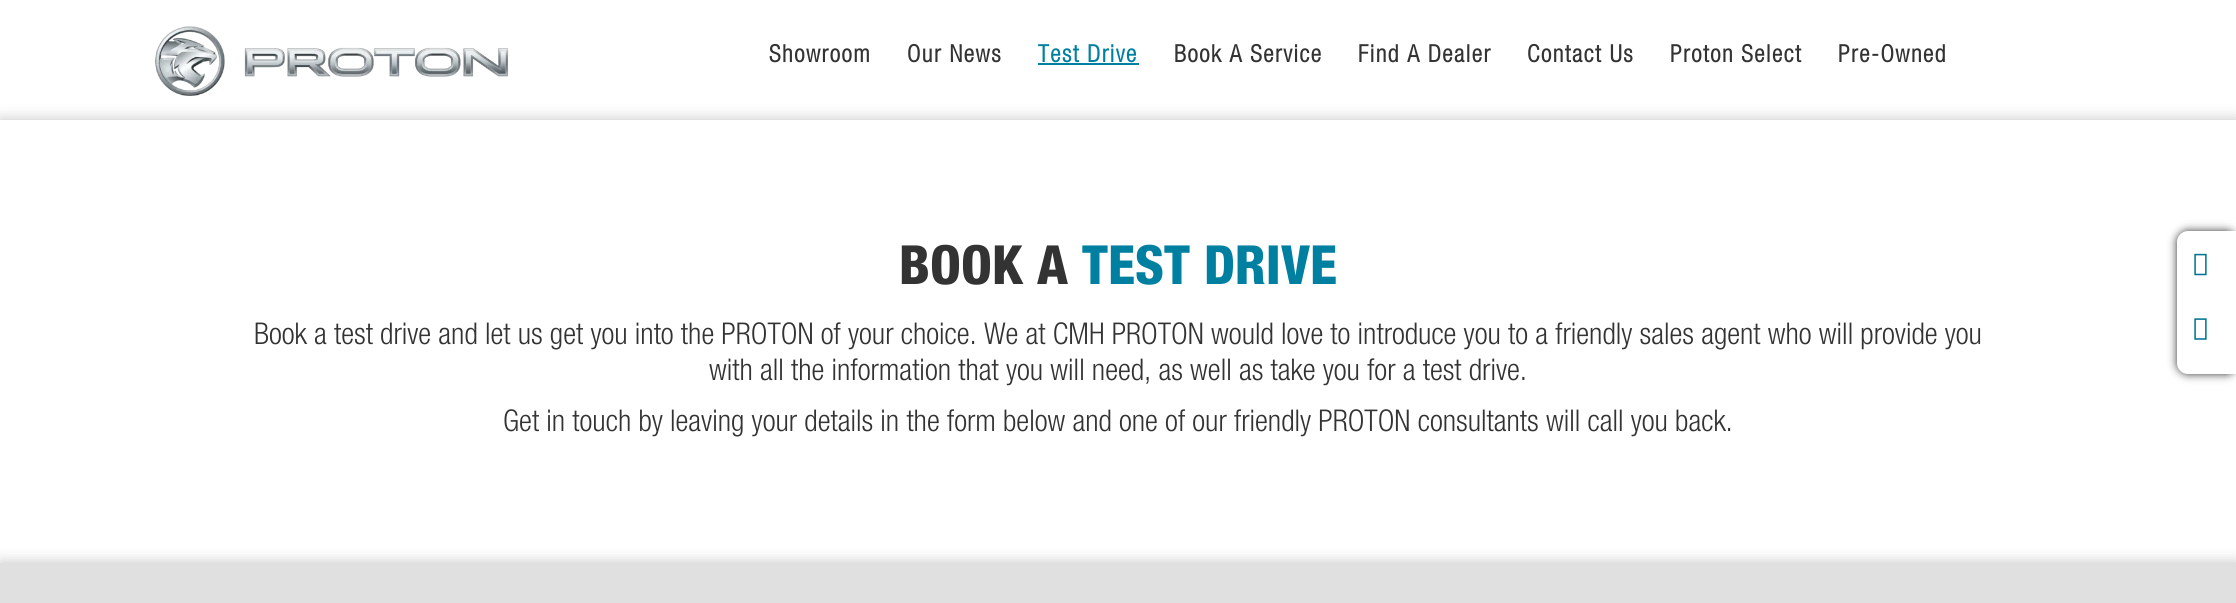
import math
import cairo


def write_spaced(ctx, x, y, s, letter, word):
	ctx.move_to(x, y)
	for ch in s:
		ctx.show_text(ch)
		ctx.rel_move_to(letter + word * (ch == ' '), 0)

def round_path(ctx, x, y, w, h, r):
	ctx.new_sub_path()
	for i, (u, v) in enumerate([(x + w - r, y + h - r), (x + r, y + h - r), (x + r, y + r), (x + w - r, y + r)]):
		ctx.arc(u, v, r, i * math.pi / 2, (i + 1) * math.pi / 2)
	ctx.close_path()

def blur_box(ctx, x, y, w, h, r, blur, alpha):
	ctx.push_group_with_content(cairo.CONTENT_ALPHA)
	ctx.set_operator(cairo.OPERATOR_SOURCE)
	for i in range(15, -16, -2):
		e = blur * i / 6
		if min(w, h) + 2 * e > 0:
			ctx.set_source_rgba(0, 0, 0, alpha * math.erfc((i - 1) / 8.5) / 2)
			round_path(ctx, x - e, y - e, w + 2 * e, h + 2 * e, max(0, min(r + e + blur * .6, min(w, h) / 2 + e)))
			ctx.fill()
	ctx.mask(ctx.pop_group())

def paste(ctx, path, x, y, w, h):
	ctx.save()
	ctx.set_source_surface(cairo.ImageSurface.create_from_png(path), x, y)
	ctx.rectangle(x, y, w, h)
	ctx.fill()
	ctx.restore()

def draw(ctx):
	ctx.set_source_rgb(1, 1, 1)
	ctx.paint()
	paste(ctx, 'media/1.png', 155, 26, 354, 70)
	ctx.select_font_face('Helvetica Neue', cairo.FONT_SLANT_NORMAL, cairo.FONT_WEIGHT_BOLD)
	ctx.set_font_size(24)
	ctx.set_source_rgb(0.2, 0.2, 0.2)
	write_spaced(ctx, 769, 62, 'Showroom', 1.5, 0)
	write_spaced(ctx, 907, 62, 'Our News', 1.5, 0)
	ctx.set_source_rgb(0, 0.502, 0.627)
	write_spaced(ctx, 1038, 62, 'Test Drive', 1.5, 0)
	ctx.rectangle(1038, 63, 101, 2)
	ctx.fill()
	ctx.set_source_rgb(0.2, 0.2, 0.2)
	for x, y, s in [
		(1174, 62, 'Book A Service'),
		(1358, 62, 'Find A Dealer'),
		(1527, 62, 'Contact Us'),
		(1670, 62, 'Proton Select'),
		(1838, 62, 'Pre-Owned'),
	]:
		write_spaced(ctx, x, y, s, 1.5, 0)
	ctx.set_source_rgb(0.765, 0.765, 0.765)
	blur_box(ctx, 0, 120, 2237, 443, 0, 7.5, 1)
	ctx.set_source_rgb(1, 1, 1)
	ctx.rectangle(0, 120, 2236, 443)
	ctx.fill()
	ctx.select_font_face('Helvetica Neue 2', cairo.FONT_SLANT_NORMAL, cairo.FONT_WEIGHT_BOLD)
	ctx.set_font_size(54)
	ctx.set_source_rgb(0.2, 0.2, 0.2)
	ctx.move_to(899, 284)
	ctx.show_text('BOOK A')
	ctx.set_source_rgb(0, 0.502, 0.627)
	ctx.move_to(1082, 284)
	ctx.show_text('TEST DRIVE')
	ctx.select_font_face('Helvetica Neue Light')
	ctx.set_font_size(30)
	ctx.set_source_rgb(0.2, 0.2, 0.2)
	for x, y, s in [
		(254, 344, 'Book a test drive and let us get you into the PROTON of your choice. We at CMH PROTON would love to introduce you to a friendly sales agent who will provide you'),
		(709, 380, 'with all the information that you will need, as well as take you for a test drive.'),
		(503, 431, 'Get in touch by leaving your details in the form below and one of our friendly PROTON consultants will call you back.'),
	]:
		ctx.move_to(x, y)
		ctx.show_text(s)
	ctx.set_source_rgb(0.765, 0.765, 0.765)
	blur_box(ctx, 0, 563, 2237, 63, 0, 7.5, 1)
	ctx.set_source_rgb(0.882, 0.878, 0.878)
	ctx.rectangle(0, 563, 2236, 40)
	ctx.fill()
	ctx.set_source_rgb(0.2, 0.2, 0.2)
	blur_box(ctx, 2177, 231, 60, 143, 11, 4.5, 1)
	ctx.set_source_rgb(1, 1, 1)
	ctx.new_path()
	ctx.move_to(2188, 231)
	ctx.line_to(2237, 231)
	ctx.line_to(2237, 374)
	ctx.line_to(2188, 374)
	ctx.curve_to(2182, 374, 2177, 369, 2177, 363)
	ctx.line_to(2177, 242)
	ctx.curve_to(2177, 236, 2182, 231, 2188, 231)
	ctx.close_path()
	ctx.fill()
	paste(ctx, 'media/2.png', 2194, 253, 13, 23)
	paste(ctx, 'media/3.png', 2194, 318, 13, 22)


surface = cairo.ImageSurface(cairo.FORMAT_RGB24, 2236, 603)
ctx = cairo.Context(surface)
options = cairo.FontOptions()
options.set_hint_metrics(cairo.HINT_METRICS_OFF)
options.set_hint_style(cairo.HINT_STYLE_NONE)
ctx.set_font_options(options)
ctx.set_miter_limit(4)
draw(ctx)
surface.write_to_png('image.png')
